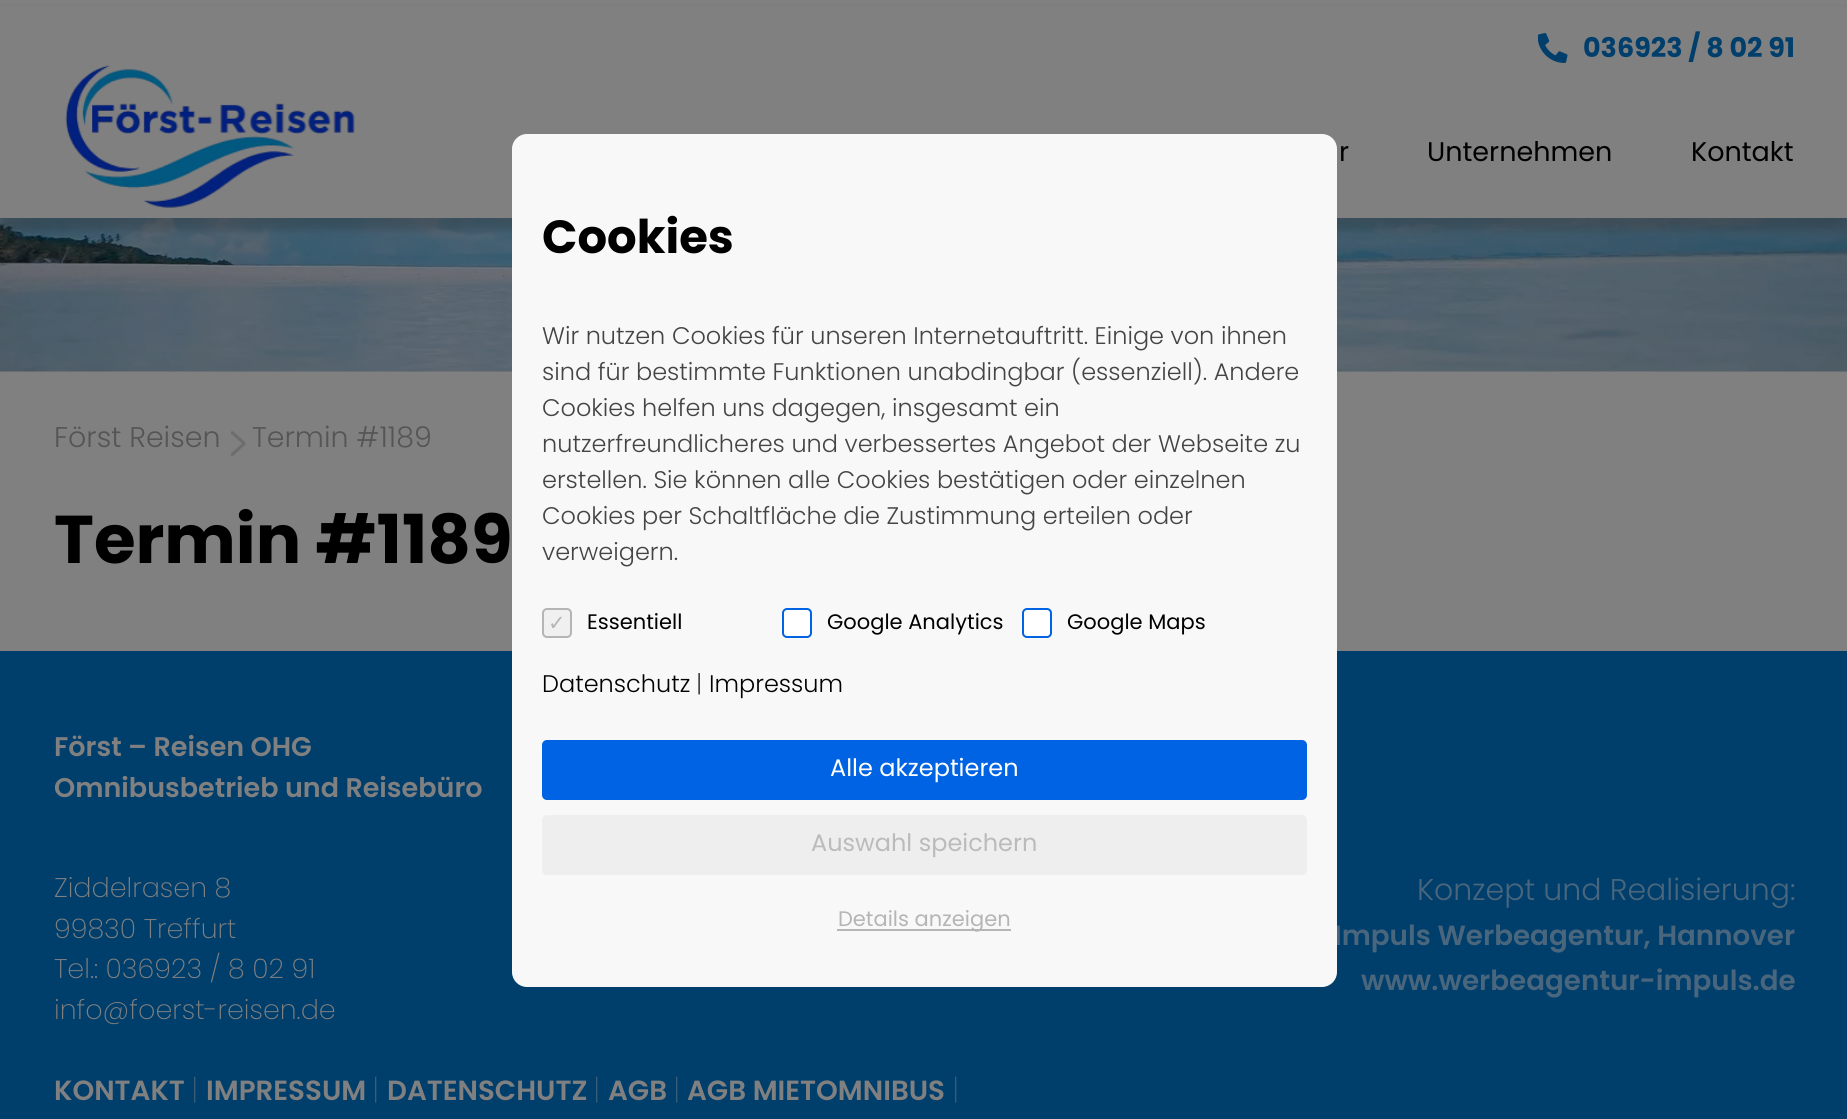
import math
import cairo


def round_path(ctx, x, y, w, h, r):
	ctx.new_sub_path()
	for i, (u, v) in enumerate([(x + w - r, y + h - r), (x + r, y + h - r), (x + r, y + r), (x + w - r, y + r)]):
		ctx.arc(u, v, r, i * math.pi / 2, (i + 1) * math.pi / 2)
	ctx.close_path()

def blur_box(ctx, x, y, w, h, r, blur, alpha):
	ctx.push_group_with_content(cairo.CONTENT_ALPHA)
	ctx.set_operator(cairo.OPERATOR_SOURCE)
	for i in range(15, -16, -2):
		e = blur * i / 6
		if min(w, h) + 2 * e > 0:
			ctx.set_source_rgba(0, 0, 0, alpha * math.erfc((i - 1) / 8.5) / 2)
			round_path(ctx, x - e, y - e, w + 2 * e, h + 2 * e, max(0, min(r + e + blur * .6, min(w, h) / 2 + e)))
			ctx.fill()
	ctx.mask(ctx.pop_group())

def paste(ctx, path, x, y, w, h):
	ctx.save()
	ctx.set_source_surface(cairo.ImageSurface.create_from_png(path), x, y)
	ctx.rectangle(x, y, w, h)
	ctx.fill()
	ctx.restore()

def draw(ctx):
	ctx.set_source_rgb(0.502, 0.502, 0.502)
	ctx.paint()
	paste(ctx, 'media/3.png', 0, 218, 1847, 154)
	ctx.set_source_rgb(0.133, 0.133, 0.133)
	blur_box(ctx, 0, 12, 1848, 218, 0, 4, 0.25)
	ctx.set_source_rgb(0.502, 0.502, 0.502)
	ctx.rectangle(0, 7, 1847, 211)
	ctx.fill()
	paste(ctx, 'media/1.png', 65, 65, 290, 143)
	paste(ctx, 'media/2.png', 1538, 33, 30, 30)
	ctx.select_font_face('Poppins', cairo.FONT_SLANT_NORMAL, cairo.FONT_WEIGHT_BOLD)
	ctx.set_font_size(27)
	ctx.set_source_rgb(0, 0.243, 0.424)
	ctx.move_to(1583, 57)
	ctx.show_text('036923 / 8 02 91')
	ctx.select_font_face('Poppins')
	ctx.set_source_rgb(0, 0, 0)
	for x, y, s in [
		(1339, 161, 'r'),
		(1427, 161, 'Unternehmen'),
		(1691, 161, 'Kontakt'),
	]:
		ctx.move_to(x, y)
		ctx.show_text(s)
	ctx.set_source_rgb(0, 0.243, 0.424)
	ctx.rectangle(0, 651, 1847, 468)
	ctx.fill()
	ctx.select_font_face('Poppins SemiBold')
	ctx.set_font_size(27.75)
	ctx.set_source_rgb(0.286, 0.4, 0.49)
	ctx.move_to(1334, 945)
	ctx.show_text('Impuls Werbeagentur, Hannover')
	ctx.set_source_rgb(0.969, 0.969, 0.969)
	round_path(ctx, 512, 134, 825, 853, 15)
	ctx.fill()
	ctx.select_font_face('Poppins', cairo.FONT_SLANT_NORMAL, cairo.FONT_WEIGHT_BOLD)
	ctx.set_font_size(46.5)
	ctx.set_source_rgb(0, 0, 0)
	ctx.move_to(542, 253)
	ctx.show_text('Cookies')
	ctx.select_font_face('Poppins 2 Light')
	ctx.set_font_size(24)
	ctx.set_source_rgb(0.267, 0.267, 0.267)
	for x, y, s in [
		(542, 344, 'Wir nutzen Cookies für unseren Internetauftritt. Einige von ihnen'),
		(542, 380, 'sind für bestimmte Funktionen unabdingbar (essenziell). Andere'),
		(542, 416, 'Cookies helfen uns dagegen, insgesamt ein'),
		(542, 452, 'nutzerfreundlicheres und verbessertes Angebot der Webseite zu'),
		(542, 488, 'erstellen. Sie können alle Cookies bestätigen oder einzelnen'),
		(542, 524, 'Cookies per Schaltfläche die Zustimmung erteilen oder'),
		(542, 560, 'verweigern.'),
	]:
		ctx.move_to(x, y)
		ctx.show_text(s)
	ctx.set_source_rgb(0.941, 0.941, 0.941)
	round_path(ctx, 543, 609, 28, 28, 4)
	ctx.fill_preserve()
	ctx.set_source_rgb(0.71, 0.71, 0.71)
	ctx.stroke()
	ctx.select_font_face('DejaVu Sans')
	ctx.set_font_size(21)
	ctx.move_to(548, 630)
	ctx.show_text('✓')
	ctx.select_font_face('Poppins')
	ctx.set_source_rgb(0, 0, 0)
	ctx.move_to(587, 629)
	ctx.show_text('Essentiell')
	ctx.set_source_rgb(1, 1, 1)
	round_path(ctx, 783, 609, 28, 28, 4)
	ctx.fill_preserve()
	ctx.set_source_rgb(0, 0.388, 0.89)
	ctx.stroke()
	ctx.set_source_rgb(0, 0, 0)
	ctx.move_to(827, 629)
	ctx.show_text('Google Analytics')
	ctx.set_source_rgb(1, 1, 1)
	round_path(ctx, 1023, 609, 28, 28, 4)
	ctx.fill_preserve()
	ctx.set_source_rgb(0, 0.388, 0.89)
	ctx.stroke()
	ctx.set_source_rgb(0, 0, 0)
	ctx.move_to(1067, 629)
	ctx.show_text('Google Maps')
	ctx.select_font_face('Poppins 2 Light')
	ctx.set_font_size(24)
	ctx.move_to(542, 692)
	ctx.show_text('Datenschutz')
	ctx.set_source_rgb(0.267, 0.267, 0.267)
	ctx.move_to(696, 692)
	ctx.show_text('|')
	ctx.set_source_rgb(0, 0, 0)
	ctx.move_to(709, 692)
	ctx.show_text('Impressum')
	ctx.set_source_rgb(0, 0.388, 0.89)
	round_path(ctx, 542, 740, 765, 60, 5)
	ctx.fill()
	ctx.select_font_face('Poppins')
	ctx.set_source_rgb(1, 1, 1)
	ctx.move_to(830, 776)
	ctx.show_text('Alle akzeptieren')
	ctx.set_source_rgb(0.933, 0.933, 0.933)
	round_path(ctx, 542, 815, 765, 60, 5)
	ctx.fill()
	ctx.set_source_rgb(0.733, 0.733, 0.733)
	ctx.move_to(811, 851)
	ctx.show_text('Auswahl speichern')
	ctx.set_source_rgb(0.71, 0.71, 0.71)
	ctx.rectangle(837, 929, 174, 2)
	ctx.fill()
	ctx.set_font_size(21)
	ctx.move_to(838, 926)
	ctx.show_text('Details anzeigen')
	ctx.select_font_face('Poppins 2 Light')
	ctx.set_font_size(28.5)
	ctx.set_source_rgb(0.333, 0.333, 0.333)
	ctx.move_to(54, 447)
	ctx.show_text('Först Reisen')
	paste(ctx, 'media/4.png', 231, 431, 15, 26)
	ctx.move_to(252, 447)
	ctx.show_text('Termin #1189')
	ctx.select_font_face('Poppins', cairo.FONT_SLANT_NORMAL, cairo.FONT_WEIGHT_BOLD)
	ctx.set_font_size(67.5)
	ctx.set_source_rgb(0, 0, 0)
	ctx.move_to(54, 563)
	ctx.show_text('Termin #1189')
	ctx.select_font_face('Poppins SemiBold')
	ctx.set_font_size(27)
	ctx.set_source_rgb(0.502, 0.502, 0.502)
	ctx.move_to(54, 756)
	ctx.show_text('Först – Reisen OHG')
	ctx.move_to(54, 797)
	ctx.show_text('Omnibusbetrieb und Reisebüro')
	ctx.select_font_face('Poppins Light')
	for x, y, s in [
		(54, 897, 'Ziddelrasen 8'),
		(54, 938, '99830 Treffurt'),
		(54, 978, 'Tel.: 036923 / 8 02 91'),
		(54, 1019, 'info@foerst-reisen.de'),
	]:
		ctx.move_to(x, y)
		ctx.show_text(s)
	ctx.select_font_face('Poppins 2 Light')
	ctx.set_font_size(30)
	ctx.set_source_rgb(0.286, 0.4, 0.49)
	ctx.move_to(1417, 900)
	ctx.show_text('Konzept und Realisierung:')
	ctx.select_font_face('Poppins SemiBold')
	ctx.set_font_size(27.75)
	ctx.move_to(1361, 990)
	ctx.show_text('www.werbeagentur-impuls.de')
	ctx.set_source_rgb(0.502, 0.502, 0.502)
	ctx.move_to(54, 1100)
	ctx.show_text('KONTAKT')
	ctx.select_font_face('Poppins ExtraLight')
	ctx.set_font_size(30)
	ctx.move_to(192, 1100)
	ctx.show_text('|')
	ctx.select_font_face('Poppins SemiBold')
	ctx.set_font_size(27.75)
	ctx.move_to(206, 1100)
	ctx.show_text('IMPRESSUM')
	ctx.select_font_face('Poppins ExtraLight')
	ctx.set_font_size(30)
	ctx.move_to(373, 1100)
	ctx.show_text('|')
	ctx.select_font_face('Poppins SemiBold')
	ctx.set_font_size(27.75)
	ctx.move_to(387, 1100)
	ctx.show_text('DATENSCHUTZ')
	ctx.select_font_face('Poppins ExtraLight')
	ctx.set_font_size(30)
	ctx.move_to(594, 1100)
	ctx.show_text('|')
	ctx.select_font_face('Poppins SemiBold')
	ctx.set_font_size(27.75)
	ctx.move_to(608, 1100)
	ctx.show_text('AGB')
	ctx.select_font_face('Poppins ExtraLight')
	ctx.set_font_size(30)
	ctx.move_to(674, 1100)
	ctx.show_text('|')
	ctx.select_font_face('Poppins SemiBold')
	ctx.set_font_size(27.75)
	ctx.move_to(687, 1100)
	ctx.show_text('AGB MIETOMNIBUS')
	ctx.select_font_face('Poppins ExtraLight')
	ctx.set_font_size(30)
	ctx.move_to(953, 1100)
	ctx.show_text('|')


surface = cairo.ImageSurface(cairo.FORMAT_RGB24, 1847, 1119)
ctx = cairo.Context(surface)
options = cairo.FontOptions()
options.set_hint_metrics(cairo.HINT_METRICS_OFF)
options.set_hint_style(cairo.HINT_STYLE_NONE)
ctx.set_font_options(options)
ctx.set_miter_limit(4)
draw(ctx)
surface.write_to_png('image.png')
